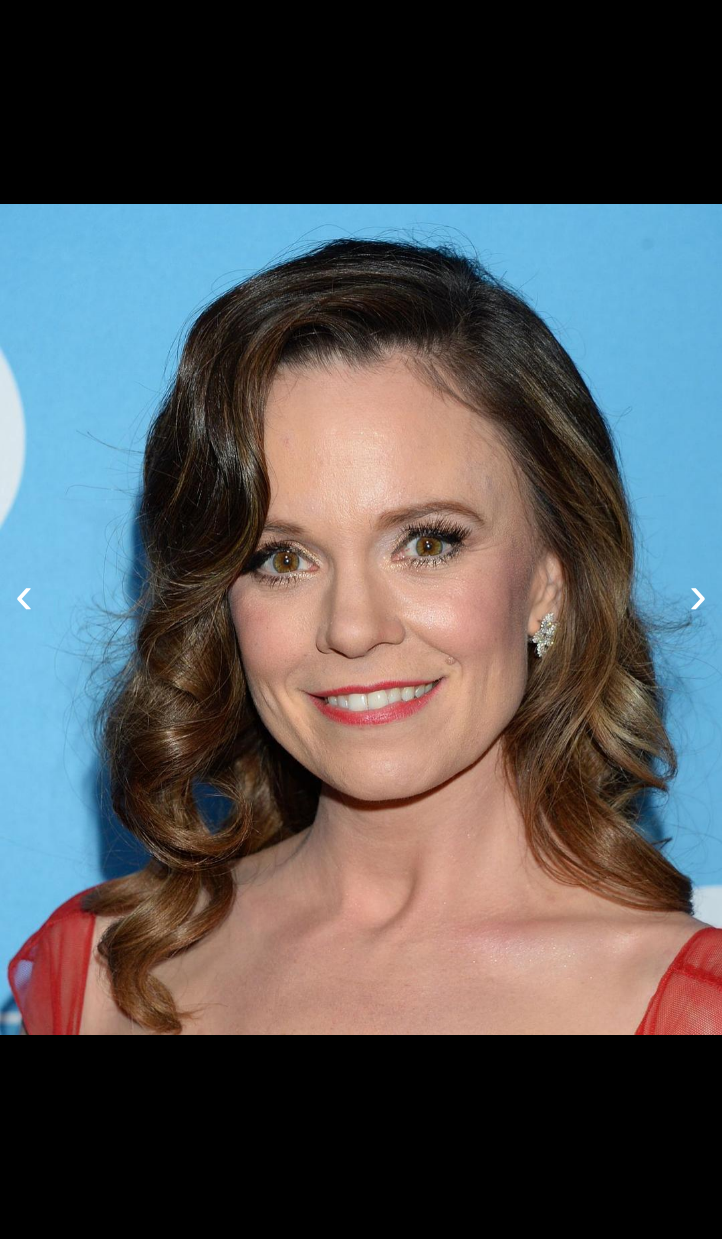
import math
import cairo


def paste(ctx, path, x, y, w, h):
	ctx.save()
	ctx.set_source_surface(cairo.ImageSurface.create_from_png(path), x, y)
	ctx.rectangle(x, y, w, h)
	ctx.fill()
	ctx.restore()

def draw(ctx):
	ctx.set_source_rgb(0, 0, 0)
	ctx.paint()
	paste(ctx, 'media/1.png', 0, 204, 722, 831)
	ctx.select_font_face('Liberation Sans')
	ctx.set_font_size(54)
	ctx.set_source_rgb(1, 1, 1)
	ctx.move_to(15, 613)
	ctx.show_text('‹')
	ctx.move_to(689, 613)
	ctx.show_text('›')


surface = cairo.ImageSurface(cairo.FORMAT_RGB24, 722, 1239)
ctx = cairo.Context(surface)
options = cairo.FontOptions()
options.set_hint_metrics(cairo.HINT_METRICS_OFF)
options.set_hint_style(cairo.HINT_STYLE_NONE)
ctx.set_font_options(options)
ctx.set_miter_limit(4)
draw(ctx)
surface.write_to_png('image.png')
